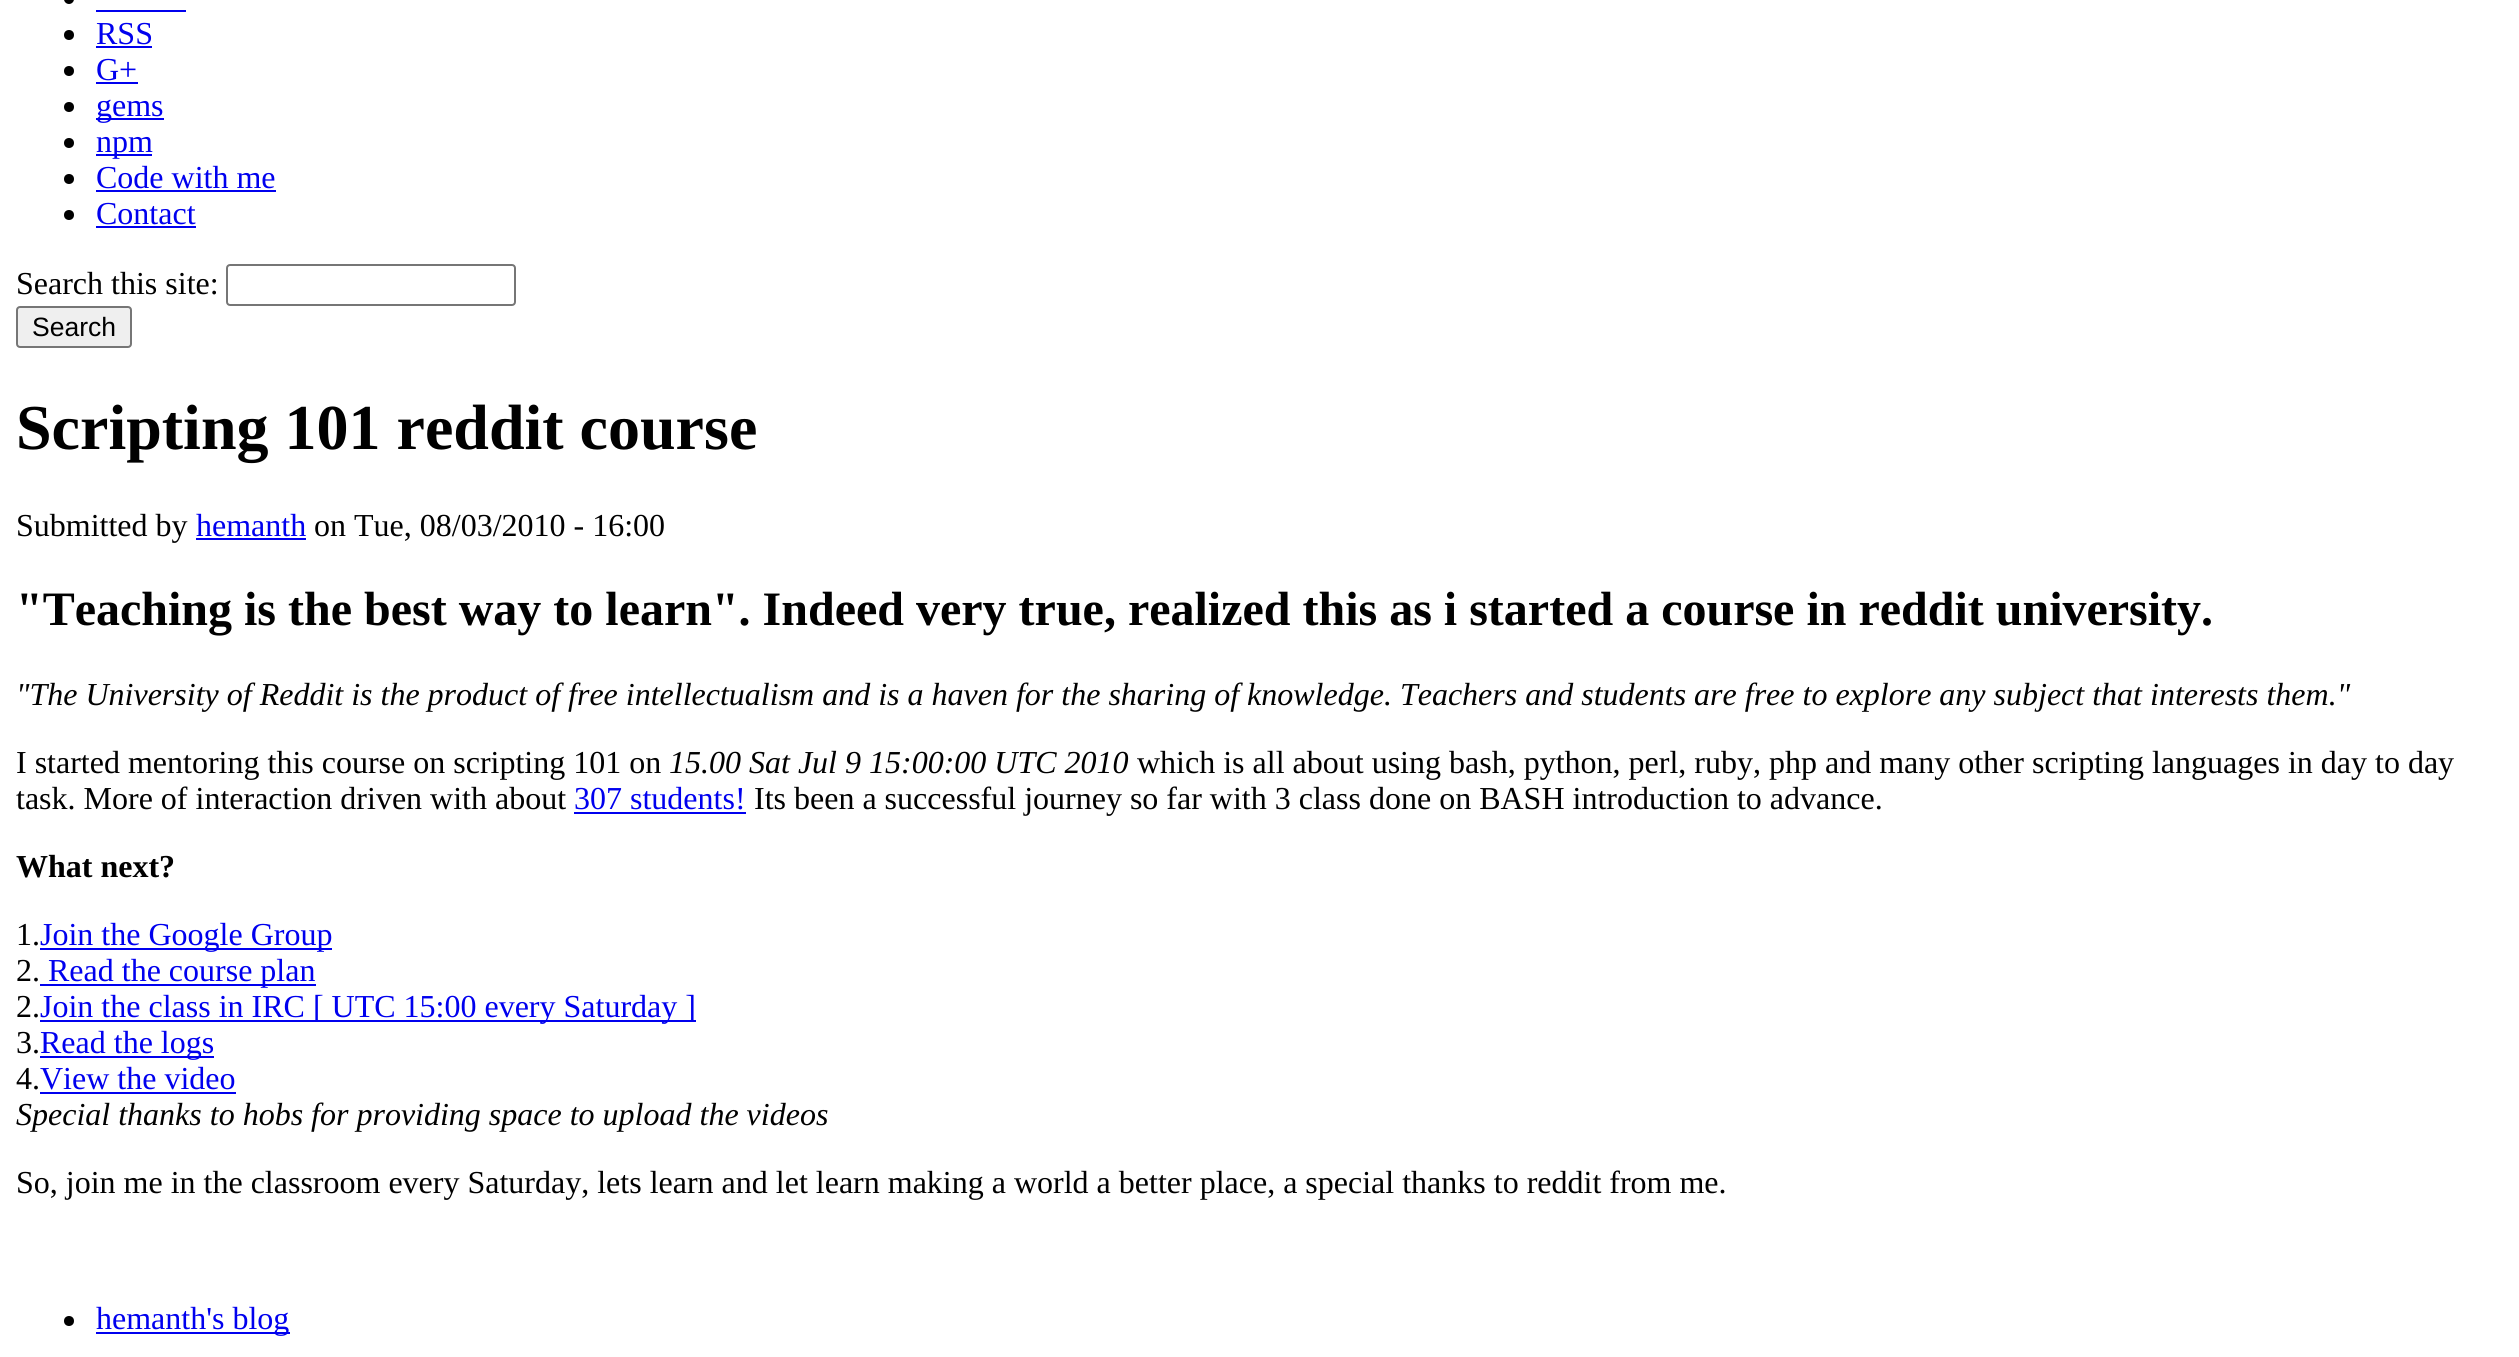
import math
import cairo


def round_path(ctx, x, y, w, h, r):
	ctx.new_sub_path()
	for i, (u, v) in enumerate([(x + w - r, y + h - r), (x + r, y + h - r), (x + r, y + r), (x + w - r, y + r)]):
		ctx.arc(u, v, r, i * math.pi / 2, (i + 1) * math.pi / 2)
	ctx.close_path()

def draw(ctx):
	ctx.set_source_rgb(1, 1, 1)
	ctx.paint()
	ctx.set_source_rgb(0, 0, 0)
	round_path(ctx, 64, -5, 10, 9, 5)
	ctx.fill()
	ctx.set_source_rgb(0, 0, 0.933)
	ctx.rectangle(96, 10, 90, 2)
	ctx.fill()
	ctx.set_source_rgb(0, 0, 0)
	ctx.arc(69, 35, 5, 0, 2 * math.pi)
	ctx.fill()
	ctx.select_font_face('Liberation Serif')
	ctx.set_font_size(32)
	ctx.set_source_rgb(0, 0, 0.933)
	ctx.move_to(96, 44)
	ctx.show_text('RSS')
	ctx.rectangle(96, 46, 56, 2)
	ctx.fill()
	ctx.set_source_rgb(0, 0, 0)
	ctx.arc(69, 71, 5, 0, 2 * math.pi)
	ctx.fill()
	ctx.set_source_rgb(0, 0, 0.933)
	ctx.move_to(96, 80)
	ctx.show_text('G+')
	ctx.rectangle(96, 82, 42, 2)
	ctx.fill()
	ctx.set_source_rgb(0, 0, 0)
	ctx.arc(69, 107, 5, 0, 2 * math.pi)
	ctx.fill()
	ctx.set_source_rgb(0, 0, 0.933)
	ctx.rectangle(96, 118, 68, 2)
	ctx.fill()
	ctx.move_to(96, 116)
	ctx.show_text('gems')
	ctx.set_source_rgb(0, 0, 0)
	ctx.new_path()
	ctx.arc(69, 143, 5, 0, 2 * math.pi)
	ctx.fill()
	ctx.set_source_rgb(0, 0, 0.933)
	ctx.rectangle(96, 154, 56, 2)
	ctx.fill()
	ctx.move_to(96, 152)
	ctx.show_text('npm')
	ctx.set_source_rgb(0, 0, 0)
	ctx.new_path()
	ctx.arc(69, 179, 5, 0, 2 * math.pi)
	ctx.fill()
	ctx.set_source_rgb(0, 0, 0.933)
	ctx.move_to(96, 188)
	ctx.show_text('Code with me')
	ctx.rectangle(96, 190, 180, 2)
	ctx.fill()
	ctx.set_source_rgb(0, 0, 0)
	ctx.arc(69, 215, 5, 0, 2 * math.pi)
	ctx.fill()
	ctx.set_source_rgb(0, 0, 0.933)
	ctx.move_to(96, 224)
	ctx.show_text('Contact')
	ctx.rectangle(96, 226, 100, 2)
	ctx.fill()
	ctx.set_source_rgb(0, 0, 0)
	ctx.move_to(16, 294)
	ctx.show_text('Search this site:')
	round_path(ctx, 227, 265, 288, 40, 3)
	ctx.set_source_rgb(0.463, 0.463, 0.463)
	ctx.stroke()
	ctx.set_source_rgb(0.937, 0.937, 0.937)
	round_path(ctx, 17, 307, 114, 40, 3)
	ctx.fill_preserve()
	ctx.set_source_rgb(0.463, 0.463, 0.463)
	ctx.stroke()
	ctx.select_font_face('Liberation Sans')
	ctx.set_font_size(26.5)
	ctx.set_source_rgb(0, 0, 0)
	ctx.move_to(32, 336)
	ctx.show_text('Search')
	ctx.select_font_face('Liberation Serif', cairo.FONT_SLANT_NORMAL, cairo.FONT_WEIGHT_BOLD)
	ctx.set_font_size(64)
	ctx.move_to(16, 449)
	ctx.show_text('Scripting 101 reddit course')
	ctx.select_font_face('Liberation Serif')
	ctx.set_font_size(32)
	ctx.move_to(16, 536)
	ctx.show_text('Submitted by')
	ctx.set_source_rgb(0, 0, 0.933)
	ctx.move_to(196, 536)
	ctx.show_text('hemanth')
	ctx.rectangle(196, 538, 110, 2)
	ctx.fill()
	ctx.set_source_rgb(0, 0, 0)
	ctx.move_to(314, 536)
	ctx.show_text('on Tue, 08/03/2010 - 16:00')
	ctx.select_font_face('Liberation Serif', cairo.FONT_SLANT_NORMAL, cairo.FONT_WEIGHT_BOLD)
	ctx.set_font_size(48)
	ctx.move_to(16, 625)
	ctx.show_text('"Teaching is the best way to learn". Indeed very true, realized this as i started a course in reddit university.')
	ctx.select_font_face('Liberation Serif', cairo.FONT_SLANT_ITALIC)
	ctx.set_font_size(32)
	ctx.move_to(16, 705)
	ctx.show_text('"The University of Reddit is the product of free intellectualism and is a haven for the sharing of knowledge. Teachers and students are free to explore any subject that interests them."')
	ctx.select_font_face('Liberation Serif')
	ctx.move_to(16, 773)
	ctx.show_text('I started mentoring this course on scripting 101 on')
	ctx.select_font_face('Liberation Serif', cairo.FONT_SLANT_ITALIC)
	ctx.move_to(669, 773)
	ctx.show_text('15.00 Sat Jul 9 15:00:00 UTC 2010')
	ctx.select_font_face('Liberation Serif')
	ctx.move_to(1137, 773)
	ctx.show_text('which is all about using bash, python, perl, ruby, php and many other scripting languages in day to day')
	ctx.move_to(16, 809)
	ctx.show_text('task. More of interaction driven with about')
	ctx.set_source_rgb(0, 0, 0.933)
	ctx.move_to(574, 809)
	ctx.show_text('307 students!')
	ctx.rectangle(574, 812, 172, 2)
	ctx.fill()
	ctx.set_source_rgb(0, 0, 0)
	ctx.move_to(754, 809)
	ctx.show_text('Its been a successful journey so far with 3 class done on BASH introduction to advance.')
	ctx.select_font_face('Liberation Serif', cairo.FONT_SLANT_NORMAL, cairo.FONT_WEIGHT_BOLD)
	ctx.move_to(16, 877)
	ctx.show_text('What next?')
	ctx.select_font_face('Liberation Serif')
	ctx.move_to(16, 945)
	ctx.show_text('1.')
	ctx.set_source_rgb(0, 0, 0.933)
	ctx.rectangle(40, 948, 292, 2)
	ctx.fill()
	ctx.move_to(40, 945)
	ctx.show_text('Join the Google Group')
	ctx.set_source_rgb(0, 0, 0)
	ctx.move_to(16, 981)
	ctx.show_text('2.')
	ctx.set_source_rgb(0, 0, 0.933)
	ctx.rectangle(40, 984, 276, 2)
	ctx.fill()
	ctx.move_to(48, 981)
	ctx.show_text('Read the course plan')
	ctx.set_source_rgb(0, 0, 0)
	ctx.move_to(16, 1017)
	ctx.show_text('2.')
	ctx.set_source_rgb(0, 0, 0.933)
	ctx.rectangle(40, 1020, 656, 2)
	ctx.fill()
	ctx.move_to(40, 1017)
	ctx.show_text('Join the class in IRC [ UTC 15:00 every Saturday ]')
	ctx.set_source_rgb(0, 0, 0)
	ctx.move_to(16, 1053)
	ctx.show_text('3.')
	ctx.set_source_rgb(0, 0, 0.933)
	ctx.rectangle(40, 1056, 174, 2)
	ctx.fill()
	ctx.move_to(40, 1053)
	ctx.show_text('Read the logs')
	ctx.set_source_rgb(0, 0, 0)
	ctx.move_to(16, 1089)
	ctx.show_text('4.')
	ctx.set_source_rgb(0, 0, 0.933)
	ctx.move_to(40, 1089)
	ctx.show_text('View the video')
	ctx.rectangle(40, 1092, 196, 2)
	ctx.fill()
	ctx.select_font_face('Liberation Serif', cairo.FONT_SLANT_ITALIC)
	ctx.set_source_rgb(0, 0, 0)
	ctx.move_to(16, 1125)
	ctx.show_text('Special thanks to hobs for providing space to upload the videos')
	ctx.select_font_face('Liberation Serif')
	ctx.move_to(16, 1193)
	ctx.show_text('So, join me in the classroom every Saturday, lets learn and let learn making a world a better place, a special thanks to reddit from me.')
	ctx.new_path()
	ctx.arc(69, 1321, 5, 0, 2 * math.pi)
	ctx.fill()
	ctx.set_source_rgb(0, 0, 0.933)
	ctx.rectangle(96, 1332, 194, 2)
	ctx.fill()
	ctx.move_to(96, 1329)
	ctx.show_text('hemanth\'s blog')


surface = cairo.ImageSurface(cairo.FORMAT_RGB24, 2519, 1357)
ctx = cairo.Context(surface)
options = cairo.FontOptions()
options.set_hint_metrics(cairo.HINT_METRICS_OFF)
options.set_hint_style(cairo.HINT_STYLE_NONE)
ctx.set_font_options(options)
ctx.set_miter_limit(4)
draw(ctx)
surface.write_to_png('image.png')
